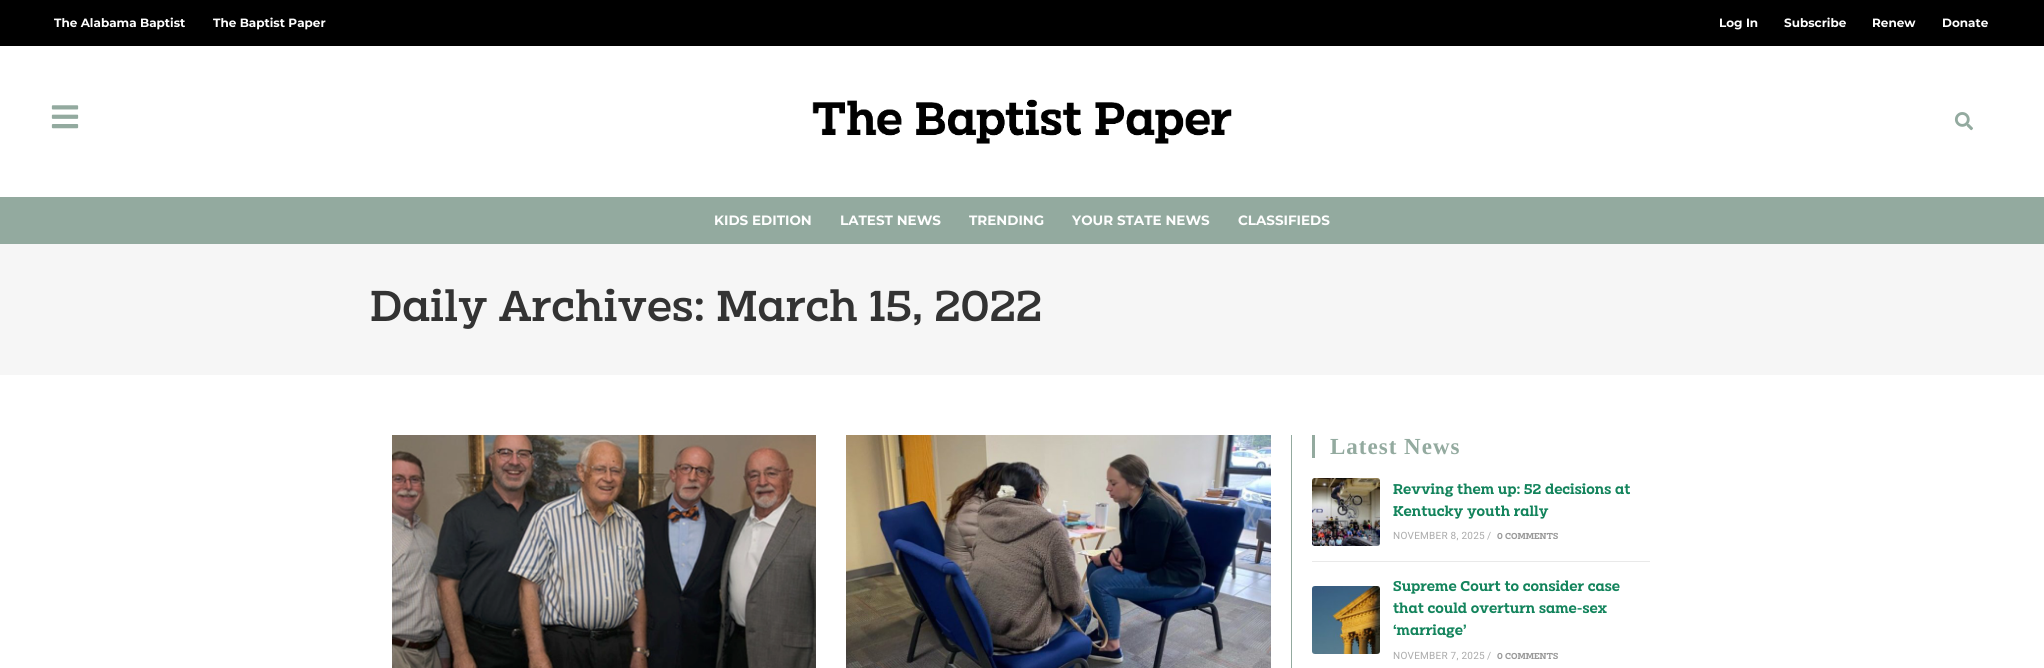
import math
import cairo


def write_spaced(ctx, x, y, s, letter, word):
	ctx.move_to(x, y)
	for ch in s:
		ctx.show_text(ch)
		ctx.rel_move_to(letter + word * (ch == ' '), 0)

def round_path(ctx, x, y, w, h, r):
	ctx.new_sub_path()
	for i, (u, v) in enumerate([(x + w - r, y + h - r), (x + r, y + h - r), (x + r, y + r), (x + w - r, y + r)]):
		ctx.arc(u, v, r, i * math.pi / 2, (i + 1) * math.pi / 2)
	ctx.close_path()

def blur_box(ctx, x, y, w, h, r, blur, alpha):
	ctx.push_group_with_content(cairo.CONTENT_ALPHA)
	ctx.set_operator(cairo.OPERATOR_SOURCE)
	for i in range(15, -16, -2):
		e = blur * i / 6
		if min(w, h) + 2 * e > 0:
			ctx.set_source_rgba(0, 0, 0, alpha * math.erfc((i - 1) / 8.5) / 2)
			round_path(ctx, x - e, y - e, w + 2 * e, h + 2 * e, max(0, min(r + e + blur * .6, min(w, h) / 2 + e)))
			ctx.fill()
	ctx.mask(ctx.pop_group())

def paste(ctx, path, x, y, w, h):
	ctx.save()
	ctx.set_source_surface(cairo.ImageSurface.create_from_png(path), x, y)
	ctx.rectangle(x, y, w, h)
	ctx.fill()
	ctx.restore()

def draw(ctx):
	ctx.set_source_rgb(1, 1, 1)
	ctx.paint()
	ctx.set_source_rgb(0.576, 0.667, 0.624)
	ctx.rectangle(0, 243, 2044, 1)
	ctx.fill()
	ctx.set_source_rgb(0, 0, 0)
	ctx.rectangle(0, 0, 2044, 46)
	ctx.fill()
	ctx.set_source_rgb(0.961, 0.961, 0.961)
	ctx.rectangle(0, 244, 2044, 131)
	ctx.fill()
	ctx.save()
	ctx.rectangle(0, 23, 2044, 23)
	ctx.clip()
	ctx.set_source_rgb(0, 0, 0)
	blur_box(ctx, 0, 46, 2044, 151, 0, 20, 0.16)
	ctx.restore()
	paste(ctx, 'media/1.png', 51, 105, 28, 24)
	paste(ctx, 'media/2.png', 812, 99, 420, 45)
	paste(ctx, 'media/3.png', 1954, 112, 19, 19)
	ctx.select_font_face('Montserrat', cairo.FONT_SLANT_NORMAL, cairo.FONT_WEIGHT_BOLD)
	ctx.set_font_size(12)
	ctx.set_source_rgb(0.996, 0.996, 0.996)
	for x, y, s in [
		(54, 27, 'The Alabama Baptist'),
		(213, 27, 'The Baptist Paper'),
		(1719, 27, 'Log In'),
		(1784, 27, 'Subscribe'),
		(1872, 27, 'Renew'),
		(1942, 27, 'Donate'),
	]:
		ctx.move_to(x, y)
		ctx.show_text(s)
	ctx.set_source_rgb(0.576, 0.667, 0.624)
	ctx.rectangle(0, 197, 2044, 46)
	ctx.fill()
	ctx.set_font_size(13.5)
	ctx.set_source_rgb(0.996, 0.996, 0.996)
	for x, y, s in [
		(714, 225, 'KIDS EDITION'),
		(840, 225, 'LATEST NEWS'),
		(969, 225, 'TRENDING'),
		(1072, 225, 'YOUR STATE NEWS'),
		(1238, 225, 'CLASSIFIEDS'),
	]:
		ctx.move_to(x, y)
		ctx.show_text(s)
	ctx.select_font_face('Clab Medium')
	ctx.set_font_size(45)
	ctx.set_source_rgb(0.2, 0.2, 0.2)
	ctx.move_to(370, 321)
	ctx.show_text('Daily Archives: March 15, 2022')
	ctx.set_source_rgb(0.576, 0.667, 0.624)
	ctx.rectangle(1291, 435, 1, 233)
	ctx.fill()
	paste(ctx, 'media/4.png', 392, 435, 424, 233)
	paste(ctx, 'media/5.png', 846, 435, 425, 233)
	ctx.rectangle(1312, 435, 3, 23)
	ctx.fill()
	ctx.select_font_face('Liberation Serif', cairo.FONT_SLANT_NORMAL, cairo.FONT_WEIGHT_BOLD)
	ctx.set_font_size(23)
	write_spaced(ctx, 1330, 454, 'Latest News', 1, 0)
	paste(ctx, 'media/6.png', 1312, 478, 68, 68)
	ctx.select_font_face('Clab SemiBold')
	ctx.set_font_size(14.8)
	ctx.set_source_rgb(0.075, 0.518, 0.361)
	ctx.move_to(1393, 494)
	ctx.show_text('Revving them up: 52 decisions at')
	ctx.move_to(1393, 516)
	ctx.show_text('Kentucky youth rally')
	ctx.select_font_face('Roboto')
	ctx.set_font_size(10)
	ctx.set_source_rgb(0.667, 0.667, 0.667)
	write_spaced(ctx, 1393, 539, 'NOVEMBER 8, 2025', 0.25, 0)
	write_spaced(ctx, 1487, 539, '/', 0.25, 0)
	ctx.select_font_face('Clab SemiBold')
	ctx.set_font_size(9)
	ctx.set_source_rgb(0.6, 0.6, 0.6)
	ctx.move_to(1497, 539)
	ctx.show_text('0 COMMENTS')
	ctx.set_source_rgb(0.914, 0.914, 0.914)
	ctx.rectangle(1312, 561, 338, 1)
	ctx.fill()
	paste(ctx, 'media/7.png', 1312, 586, 68, 68)
	ctx.set_font_size(14.8)
	ctx.set_source_rgb(0.075, 0.518, 0.361)
	for x, y, s in [
		(1393, 591, 'Supreme Court to consider case'),
		(1393, 613, 'that could overturn same-sex'),
		(1393, 635, '‘marriage’'),
	]:
		ctx.move_to(x, y)
		ctx.show_text(s)
	ctx.select_font_face('Roboto')
	ctx.set_font_size(10)
	ctx.set_source_rgb(0.667, 0.667, 0.667)
	write_spaced(ctx, 1393, 659, 'NOVEMBER 7, 2025', 0.25, 0)
	write_spaced(ctx, 1487, 659, '/', 0.25, 0)
	ctx.select_font_face('Clab SemiBold')
	ctx.set_font_size(9)
	ctx.set_source_rgb(0.6, 0.6, 0.6)
	ctx.move_to(1497, 659)
	ctx.show_text('0 COMMENTS')


surface = cairo.ImageSurface(cairo.FORMAT_RGB24, 2044, 668)
ctx = cairo.Context(surface)
options = cairo.FontOptions()
options.set_hint_metrics(cairo.HINT_METRICS_OFF)
options.set_hint_style(cairo.HINT_STYLE_NONE)
ctx.set_font_options(options)
ctx.set_miter_limit(4)
draw(ctx)
surface.write_to_png('image.png')
